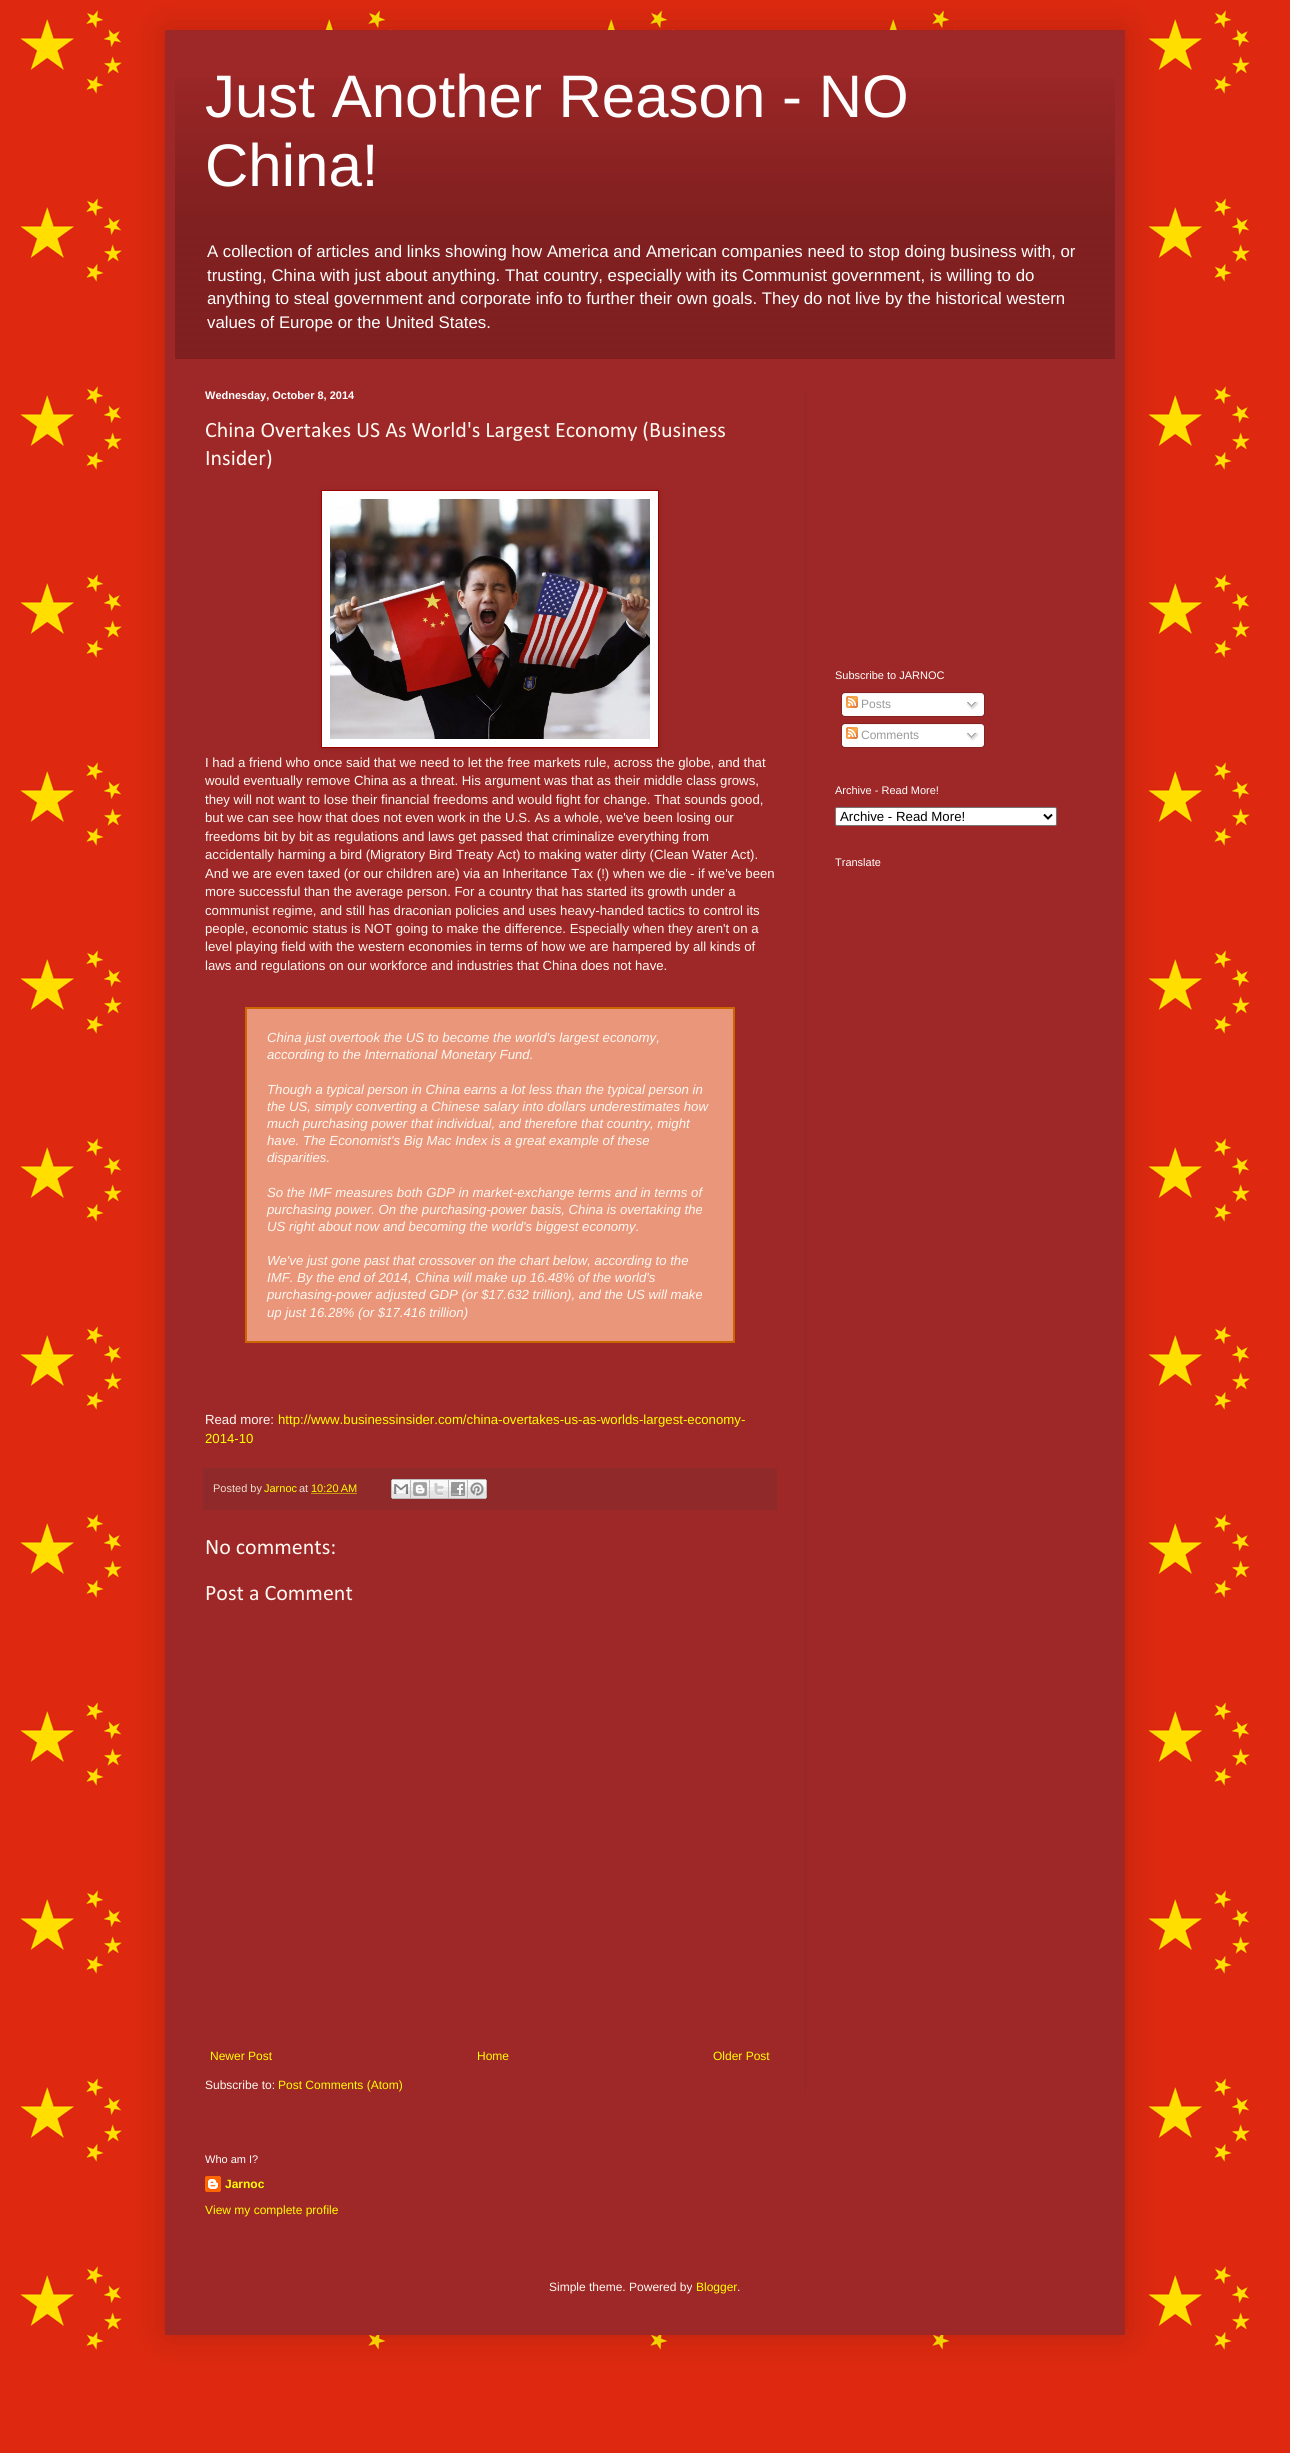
import math
import cairo


def round_path(ctx, x, y, w, h, r):
	ctx.new_sub_path()
	for i, (u, v) in enumerate([(x + w - r, y + h - r), (x + r, y + h - r), (x + r, y + r), (x + w - r, y + r)]):
		ctx.arc(u, v, r, i * math.pi / 2, (i + 1) * math.pi / 2)
	ctx.close_path()

def blur_box(ctx, x, y, w, h, r, blur, alpha):
	ctx.push_group_with_content(cairo.CONTENT_ALPHA)
	ctx.set_operator(cairo.OPERATOR_SOURCE)
	for i in range(15, -16, -2):
		e = blur * i / 6
		if min(w, h) + 2 * e > 0:
			ctx.set_source_rgba(0, 0, 0, alpha * math.erfc((i - 1) / 8.5) / 2)
			round_path(ctx, x - e, y - e, w + 2 * e, h + 2 * e, max(0, min(r + e + blur * .6, min(w, h) / 2 + e)))
			ctx.fill()
	ctx.mask(ctx.pop_group())

def paste(ctx, path, x, y, w, h):
	ctx.save()
	ctx.set_source_surface(cairo.ImageSurface.create_from_png(path), x, y)
	ctx.rectangle(x, y, w, h)
	ctx.fill()
	ctx.restore()

def draw(ctx):
	ctx.set_source_rgb(1, 1, 1)
	ctx.paint()
	paste(ctx, 'media/1.png', 0, 0, 1290, 2453)
	ctx.set_source_rgb(0, 0, 0)
	blur_box(ctx, 165, 30, 960, 2305, 0, 20, 0.15)
	ctx.set_source_rgb(0.62, 0.153, 0.153)
	ctx.rectangle(165, 30, 960, 2305)
	ctx.fill()
	paste(ctx, 'media/2.png', 175, 78, 940, 281)
	ctx.select_font_face('Liberation Sans')
	ctx.set_font_size(60)
	ctx.set_source_rgb(1, 1, 1)
	ctx.move_to(205, 117)
	ctx.show_text('Just Another Reason - NO')
	ctx.move_to(205, 186)
	ctx.show_text('China!')
	ctx.set_font_size(16.8)
	for x, y, s in [
		(207, 257, 'A collection of articles and links showing how America and American companies need to stop doing business with, or'),
		(207, 281, 'trusting, China with just about anything. That country, especially with its Communist government, is willing to do'),
		(207, 304, 'anything to steal government and corporate info to further their own goals. They do not live by the historical western'),
		(207, 328, 'values of Europe or the United States.'),
	]:
		ctx.move_to(x, y)
		ctx.show_text(s)
	ctx.set_source_rgb(0.565, 0.161, 0.161)
	ctx.rectangle(805, 389, 1, 1704)
	ctx.fill()
	ctx.select_font_face('Liberation Sans', cairo.FONT_SLANT_NORMAL, cairo.FONT_WEIGHT_BOLD)
	ctx.set_font_size(11)
	ctx.set_source_rgb(1, 1, 1)
	ctx.move_to(205, 399)
	ctx.show_text('Wednesday, October 8, 2014')
	ctx.select_font_face('Calibri')
	ctx.set_font_size(22)
	ctx.set_source_rgb(1, 0.969, 0.945)
	ctx.move_to(205, 437)
	ctx.show_text('China Overtakes US As World\'s Largest Economy (Business')
	ctx.move_to(205, 465)
	ctx.show_text('Insider)')
	ctx.set_source_rgb(0, 0, 0)
	blur_box(ctx, 322, 491, 338, 258, 0, 2.5, 0.1)
	ctx.set_source_rgb(1, 1, 1)
	ctx.rectangle(321.5, 490.5, 337, 257)
	ctx.fill_preserve()
	ctx.set_source_rgb(0.612, 0, 0)
	ctx.set_line_width(1)
	ctx.stroke()
	paste(ctx, 'media/3.png', 330, 499, 320, 240)
	ctx.select_font_face('Liberation Sans')
	ctx.set_font_size(13.2)
	ctx.set_source_rgb(1, 0.969, 0.945)
	for x, y, s in [
		(205, 767, 'I had a friend who once said that we need to let the free markets rule, across the globe, and that'),
		(205, 785, 'would eventually remove China as a threat. His argument was that as their middle class grows,'),
		(205, 804, 'they will not want to lose their financial freedoms and would fight for change. That sounds good,'),
		(205, 822, 'but we can see how that does not even work in the U.S. As a whole, we\'ve been losing our'),
		(205, 841, 'freedoms bit by bit as regulations and laws get passed that criminalize everything from'),
		(205, 859, 'accidentally harming a bird (Migratory Bird Treaty Act) to making water dirty (Clean Water Act).'),
		(205, 878, 'And we are even taxed (or our children are) via an Inheritance Tax (!) when we die - if we\'ve been'),
		(205, 896, 'more successful than the average person. For a country that has started its growth under a'),
		(205, 915, 'communist regime, and still has draconian policies and uses heavy-handed tactics to control its'),
		(205, 933, 'people, economic status is NOT going to make the difference. Especially when they aren\'t on a'),
		(205, 951, 'level playing field with the western economies in terms of how we are hampered by all kinds of'),
		(205, 970, 'laws and regulations on our workforce and industries that China does not have.'),
	]:
		ctx.move_to(x, y)
		ctx.show_text(s)
	ctx.set_source_rgb(0.914, 0.588, 0.478)
	ctx.rectangle(246, 1008, 488, 334)
	ctx.fill_preserve()
	ctx.set_source_rgb(0.8, 0.4, 0)
	ctx.set_line_width(2)
	ctx.stroke()
	ctx.select_font_face('Liberation Sans', cairo.FONT_SLANT_ITALIC)
	ctx.set_source_rgb(1, 0.969, 0.945)
	for x, y, s in [
		(267, 1042, 'China just overtook the US to become the world\'s largest economy,'),
		(267, 1059, 'according to the International Monetary Fund.'),
		(267, 1094, 'Though a typical person in China earns a lot less than the typical person in'),
		(267, 1111, 'the US, simply converting a Chinese salary into dollars underestimates how'),
		(267, 1128, 'much purchasing power that individual, and therefore that country, might'),
		(267, 1145, 'have. The Economist\'s Big Mac Index is a great example of these'),
		(267, 1162, 'disparities.'),
		(267, 1197, 'So the IMF measures both GDP in market-exchange terms and in terms of'),
		(267, 1214, 'purchasing power. On the purchasing-power basis, China is overtaking the'),
		(267, 1231, 'US right about now and becoming the world\'s biggest economy.'),
		(267, 1265, 'We\'ve just gone past that crossover on the chart below, according to the'),
		(267, 1282, 'IMF. By the end of 2014, China will make up 16.48% of the world\'s'),
		(267, 1299, 'purchasing-power adjusted GDP (or $17.632 trillion), and the US will make'),
		(267, 1317, 'up just 16.28% (or $17.416 trillion)'),
	]:
		ctx.move_to(x, y)
		ctx.show_text(s)
	ctx.select_font_face('Liberation Sans')
	ctx.move_to(205, 1424)
	ctx.show_text('Read more:')
	ctx.set_source_rgb(1, 1, 0)
	ctx.move_to(278, 1424)
	ctx.show_text('http://www.businessinsider.com/china-overtakes-us-as-worlds-largest-economy-')
	ctx.move_to(205, 1443)
	ctx.show_text('2014-10')
	ctx.set_source_rgb(0.565, 0.161, 0.161)
	ctx.rectangle(203, 1468, 574, 42)
	ctx.fill()
	ctx.set_font_size(11)
	ctx.set_source_rgb(0.937, 0.875, 0.812)
	ctx.move_to(213, 1492)
	ctx.show_text('Posted by')
	ctx.set_source_rgb(1, 1, 0)
	ctx.move_to(264, 1492)
	ctx.show_text('Jarnoc')
	ctx.set_source_rgb(0.937, 0.875, 0.812)
	ctx.move_to(299, 1492)
	ctx.show_text('at')
	ctx.set_source_rgb(1, 1, 0)
	ctx.move_to(311, 1492)
	ctx.show_text('10:20 AM')
	ctx.new_path()
	ctx.move_to(311.5, 1493.5)
	ctx.line_to(357, 1493.5)
	ctx.set_line_width(1)
	ctx.set_dash([1, 1])
	ctx.stroke()
	paste(ctx, 'media/4.png', 391, 1479, 20, 20)
	paste(ctx, 'media/5.png', 411, 1479, 19, 20)
	paste(ctx, 'media/6.png', 430, 1479, 19, 20)
	paste(ctx, 'media/7.png', 449, 1479, 19, 20)
	paste(ctx, 'media/8.png', 468, 1479, 19, 20)
	ctx.select_font_face('Calibri')
	ctx.set_font_size(22)
	ctx.set_source_rgb(1, 0.969, 0.945)
	ctx.move_to(205, 1554)
	ctx.show_text('No comments:')
	ctx.move_to(205, 1600)
	ctx.show_text('Post a Comment')
	ctx.select_font_face('Liberation Sans')
	ctx.set_font_size(12)
	ctx.set_source_rgb(1, 1, 0)
	for x, y, s in [
		(210, 2060, 'Newer Post'),
		(477, 2060, 'Home'),
		(713, 2060, 'Older Post'),
	]:
		ctx.move_to(x, y)
		ctx.show_text(s)
	ctx.set_source_rgb(1, 0.969, 0.945)
	ctx.move_to(205, 2089)
	ctx.show_text('Subscribe to:')
	ctx.set_source_rgb(1, 1, 0)
	ctx.move_to(278, 2089)
	ctx.show_text('Post Comments (Atom)')
	ctx.set_font_size(11)
	ctx.set_source_rgb(1, 1, 1)
	ctx.move_to(835, 679)
	ctx.show_text('Subscribe to JARNOC')
	paste(ctx, 'media/9.png', 841, 692, 144, 22)
	paste(ctx, 'media/10.png', 846, 696, 12, 12)
	ctx.set_font_size(12)
	ctx.set_source_rgb(0.6, 0.6, 0.6)
	ctx.move_to(861, 708)
	ctx.show_text('Posts')
	paste(ctx, 'media/11.png', 966, 701, 13, 9)
	paste(ctx, 'media/12.png', 841, 714, 144, 3)
	paste(ctx, 'media/9.png', 841, 723, 144, 22)
	paste(ctx, 'media/10.png', 846, 727, 12, 12)
	ctx.move_to(861, 739)
	ctx.show_text('Comments')
	paste(ctx, 'media/11.png', 966, 732, 13, 9)
	paste(ctx, 'media/12.png', 841, 745, 144, 3)
	ctx.set_font_size(11)
	ctx.set_source_rgb(1, 1, 1)
	ctx.move_to(835, 794)
	ctx.show_text('Archive - Read More!')
	round_path(ctx, 835.5, 807.5, 221, 18, 1.5)
	ctx.fill_preserve()
	ctx.set_source_rgb(0.463, 0.463, 0.463)
	ctx.set_dash([])
	ctx.stroke()
	ctx.new_path()
	ctx.move_to(1044, 814.5)
	ctx.line_to(1048, 818.5)
	ctx.line_to(1052, 814.5)
	ctx.set_source_rgb(0, 0, 0)
	ctx.set_line_width(2)
	ctx.stroke()
	ctx.set_font_size(13.25)
	ctx.move_to(840, 821)
	ctx.show_text('Archive - Read More!')
	ctx.set_font_size(11)
	ctx.set_source_rgb(1, 1, 1)
	ctx.move_to(835, 866)
	ctx.show_text('Translate')
	ctx.move_to(205, 2163)
	ctx.show_text('Who am I?')
	paste(ctx, 'media/13.png', 205, 2176, 16, 16)
	ctx.select_font_face('Liberation Sans', cairo.FONT_SLANT_NORMAL, cairo.FONT_WEIGHT_BOLD)
	ctx.set_font_size(12)
	ctx.set_source_rgb(1, 1, 0)
	ctx.move_to(225, 2188)
	ctx.show_text('Jarnoc')
	ctx.select_font_face('Liberation Sans')
	ctx.move_to(205, 2214)
	ctx.show_text('View my complete profile')
	ctx.set_source_rgb(1, 0.969, 0.945)
	ctx.move_to(549, 2291)
	ctx.show_text('Simple theme. Powered by')
	ctx.set_source_rgb(1, 1, 0)
	ctx.move_to(696, 2291)
	ctx.show_text('Blogger')
	ctx.set_source_rgb(1, 0.969, 0.945)
	ctx.move_to(737, 2291)
	ctx.show_text('.')


surface = cairo.ImageSurface(cairo.FORMAT_RGB24, 1290, 2453)
ctx = cairo.Context(surface)
options = cairo.FontOptions()
options.set_hint_metrics(cairo.HINT_METRICS_OFF)
options.set_hint_style(cairo.HINT_STYLE_NONE)
ctx.set_font_options(options)
ctx.set_miter_limit(4)
draw(ctx)
surface.write_to_png('image.png')
